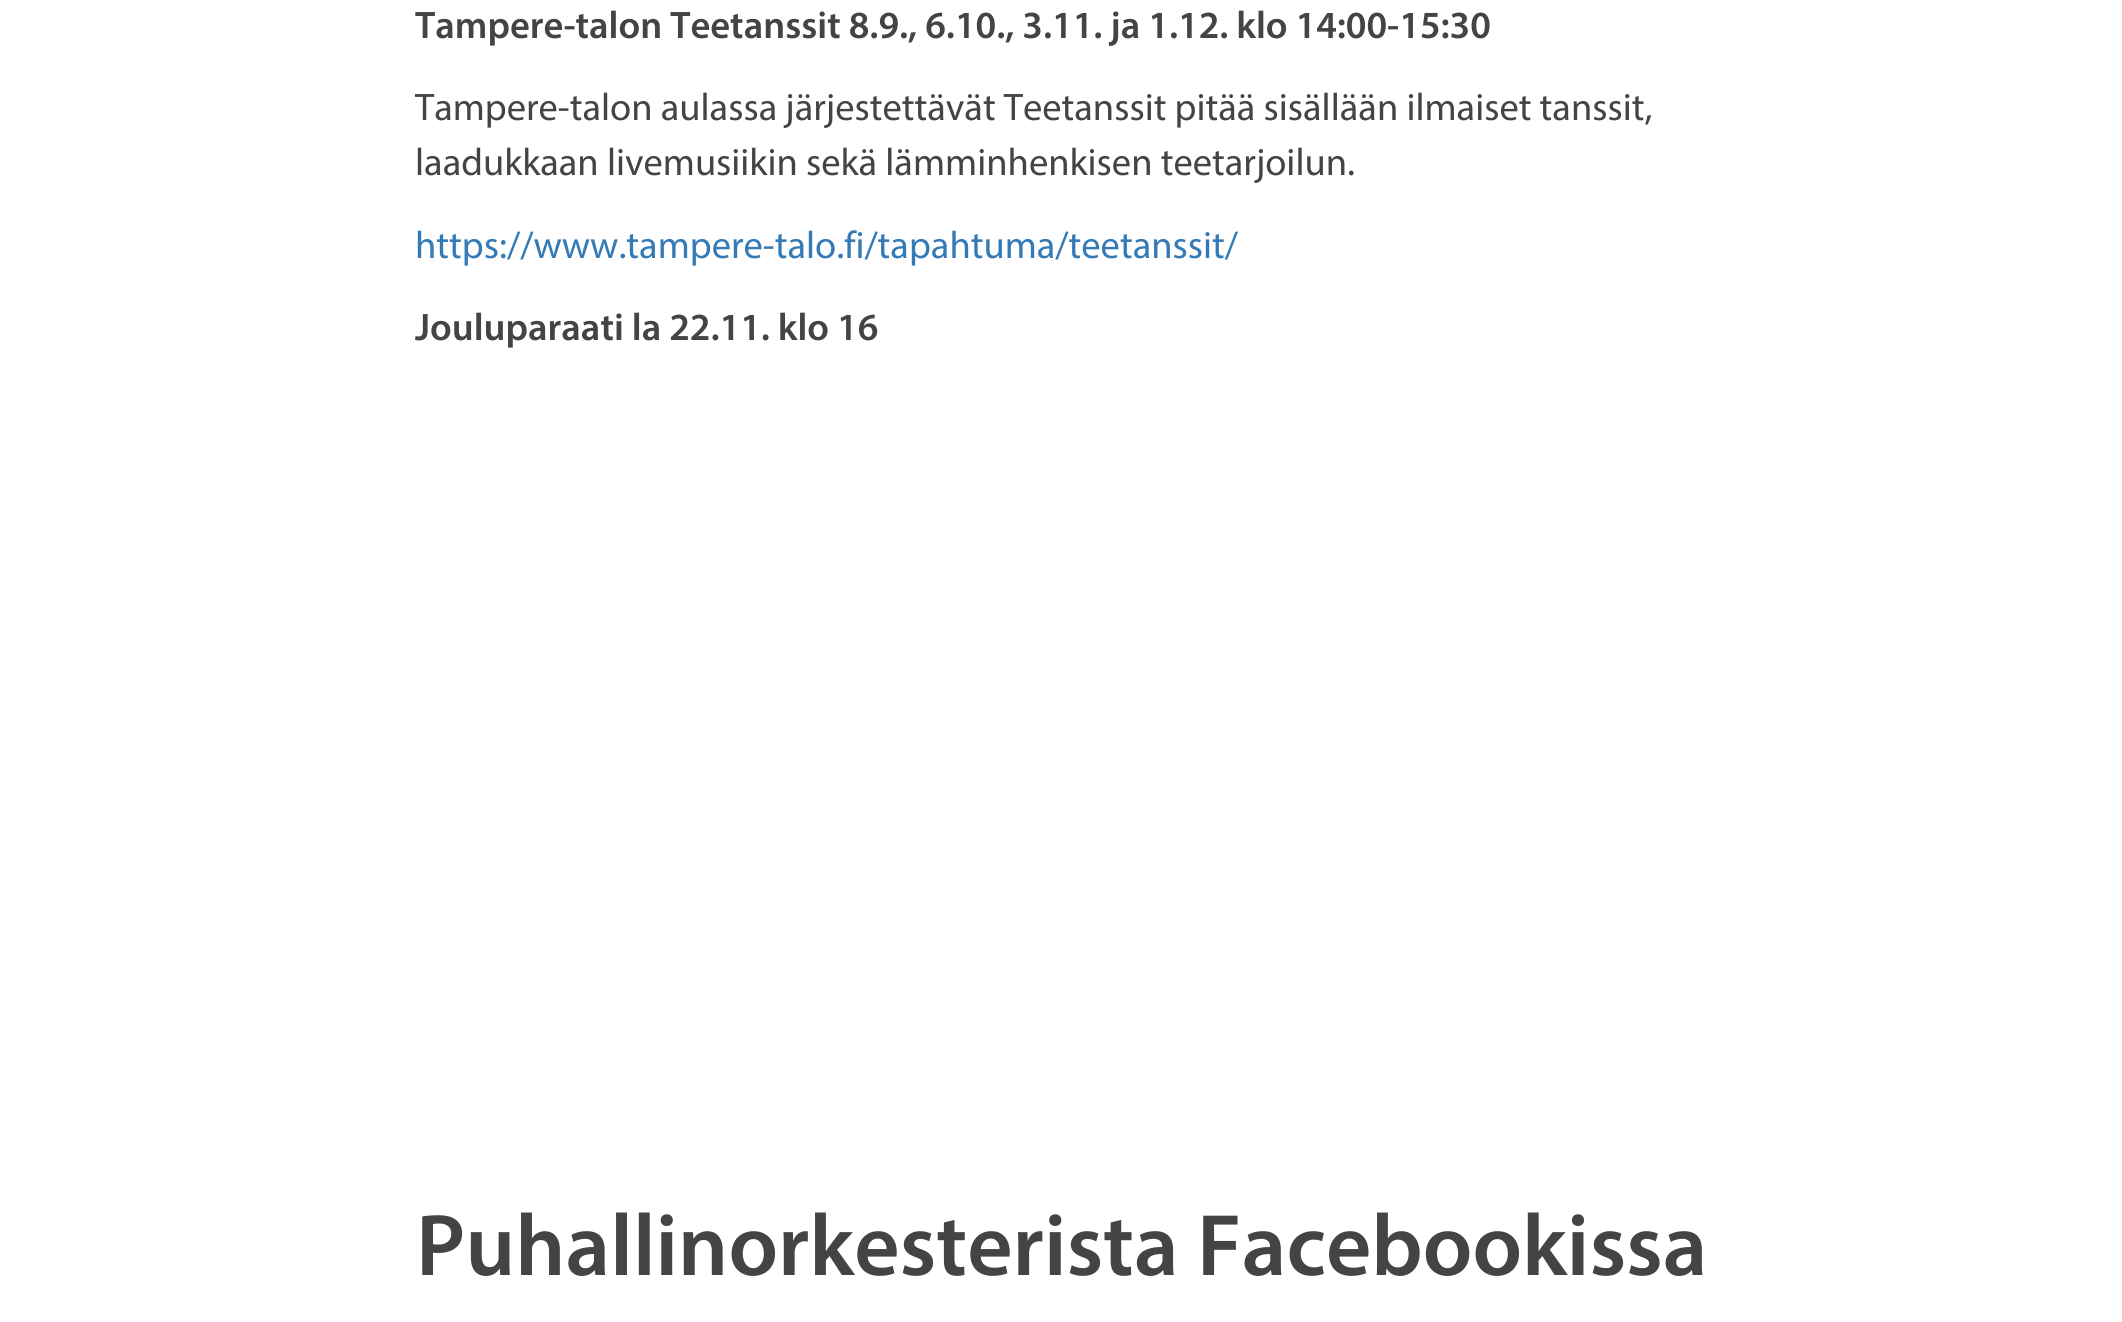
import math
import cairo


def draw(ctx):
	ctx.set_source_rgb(1, 1, 1)
	ctx.paint()
	ctx.select_font_face('Myriad SemiBold')
	ctx.set_font_size(38.5)
	ctx.set_source_rgb(0.263, 0.267, 0.263)
	ctx.move_to(415, 38)
	ctx.show_text('Tampere-talon Teetanssit 8.9., 6.10., 3.11. ja 1.12. klo 14:00-15:30')
	ctx.select_font_face('Myriad')
	ctx.move_to(415, 120)
	ctx.show_text('Tampere-talon aulassa järjestettävät Teetanssit pitää sisällään ilmaiset tanssit,')
	ctx.move_to(415, 175)
	ctx.show_text('laadukkaan livemusiikin sekä lämminhenkisen teetarjoilun.')
	ctx.set_source_rgb(0.2, 0.478, 0.718)
	ctx.move_to(415, 258)
	ctx.show_text('https://www.tampere-talo.fi/tapahtuma/teetanssit/')
	ctx.select_font_face('Myriad SemiBold')
	ctx.set_source_rgb(0.263, 0.267, 0.263)
	ctx.move_to(415, 340)
	ctx.show_text('Jouluparaati la 22.11. klo 16')
	ctx.set_font_size(88)
	ctx.move_to(416, 1275)
	ctx.show_text('Puhallinorkesterista Facebookissa')


surface = cairo.ImageSurface(cairo.FORMAT_RGB24, 2122, 1322)
ctx = cairo.Context(surface)
options = cairo.FontOptions()
options.set_hint_metrics(cairo.HINT_METRICS_OFF)
options.set_hint_style(cairo.HINT_STYLE_NONE)
ctx.set_font_options(options)
ctx.set_miter_limit(4)
draw(ctx)
surface.write_to_png('image.png')
